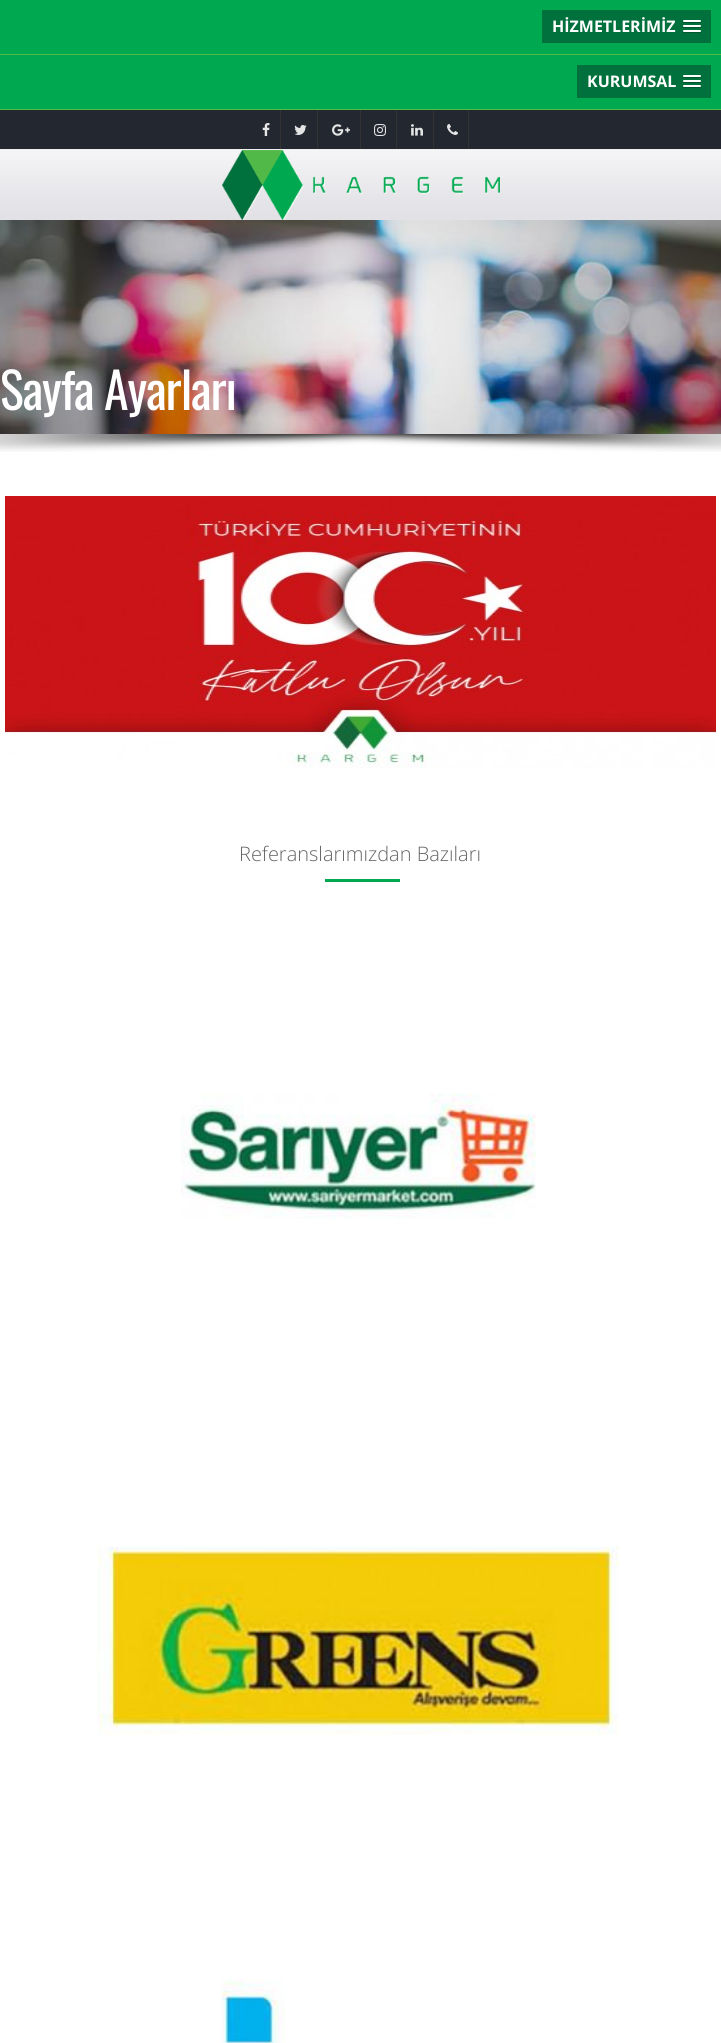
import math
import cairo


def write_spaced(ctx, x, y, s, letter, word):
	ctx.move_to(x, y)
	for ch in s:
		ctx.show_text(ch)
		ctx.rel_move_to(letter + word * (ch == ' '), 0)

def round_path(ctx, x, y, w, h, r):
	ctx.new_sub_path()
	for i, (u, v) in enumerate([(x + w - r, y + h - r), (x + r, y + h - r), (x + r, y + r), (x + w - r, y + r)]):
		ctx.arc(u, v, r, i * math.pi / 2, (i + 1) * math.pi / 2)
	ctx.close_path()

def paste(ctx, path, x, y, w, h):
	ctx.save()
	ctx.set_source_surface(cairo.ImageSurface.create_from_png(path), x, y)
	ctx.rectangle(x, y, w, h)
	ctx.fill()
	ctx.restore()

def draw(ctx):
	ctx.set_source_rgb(1, 1, 1)
	ctx.paint()
	ctx.set_source_rgb(0, 0.663, 0.314)
	ctx.rectangle(0, 0, 721, 54)
	ctx.fill()
	ctx.set_source_rgb(0.314, 0.725, 0.282)
	ctx.rectangle(0, 54, 721, 1)
	ctx.fill()
	ctx.set_source_rgb(0, 0.439, 0.235)
	ctx.rectangle(542, 10, 169, 33)
	ctx.fill()
	ctx.select_font_face('Open Sans', cairo.FONT_SLANT_NORMAL, cairo.FONT_WEIGHT_BOLD)
	ctx.set_font_size(16)
	ctx.set_source_rgb(1, 1, 1)
	ctx.move_to(552, 32)
	ctx.show_text('HİZMETLERİMİZ')
	ctx.set_source_rgb(0, 0.329, 0.176)
	ctx.new_path()
	ctx.move_to(683, 21.5)
	ctx.curve_to(682, 23.5, 686.5, 23, 686.5, 23)
	ctx.line_to(697.5, 23)
	ctx.curve_to(697.5, 23, 702, 23.5, 701, 21.5)
	ctx.curve_to(700, 22.5, 693.5, 22, 692, 22)
	ctx.curve_to(690.5, 22, 684, 22.5, 683, 21.5)
	ctx.close_path()
	ctx.fill()
	ctx.set_source_rgb(1, 1, 1)
	round_path(ctx, 683, 20, 18, 2, 1)
	ctx.fill()
	ctx.set_source_rgb(0, 0.329, 0.176)
	ctx.new_path()
	ctx.move_to(683, 26.5)
	ctx.curve_to(682, 28.5, 686.5, 28, 686.5, 28)
	ctx.line_to(697.5, 28)
	ctx.curve_to(697.5, 28, 702, 28.5, 701, 26.5)
	ctx.curve_to(700, 27.5, 693.5, 27, 692, 27)
	ctx.curve_to(690.5, 27, 684, 27.5, 683, 26.5)
	ctx.close_path()
	ctx.fill()
	ctx.set_source_rgb(1, 1, 1)
	round_path(ctx, 683, 25, 18, 2, 1)
	ctx.fill()
	ctx.set_source_rgb(0, 0.329, 0.176)
	ctx.new_path()
	ctx.move_to(683, 31.5)
	ctx.curve_to(682, 33.5, 686.5, 33, 686.5, 33)
	ctx.line_to(697.5, 33)
	ctx.curve_to(697.5, 33, 702, 33.5, 701, 31.5)
	ctx.curve_to(700, 32.5, 693.5, 32, 692, 32)
	ctx.curve_to(690.5, 32, 684, 32.5, 683, 31.5)
	ctx.close_path()
	ctx.fill()
	ctx.set_source_rgb(1, 1, 1)
	round_path(ctx, 683, 30, 18, 2, 1)
	ctx.fill()
	ctx.set_source_rgb(0, 0.663, 0.314)
	ctx.rectangle(0, 55, 721, 54)
	ctx.fill()
	ctx.set_source_rgb(0.314, 0.725, 0.282)
	ctx.rectangle(0, 109, 721, 1)
	ctx.fill()
	ctx.set_source_rgb(0, 0.439, 0.235)
	ctx.rectangle(577, 65, 134, 33)
	ctx.fill()
	ctx.set_source_rgb(1, 1, 1)
	ctx.move_to(587, 87)
	ctx.show_text('KURUMSAL')
	ctx.set_source_rgb(0, 0.329, 0.176)
	ctx.new_path()
	ctx.move_to(683, 76.5)
	ctx.curve_to(682, 78.5, 686.5, 78, 686.5, 78)
	ctx.line_to(697.5, 78)
	ctx.curve_to(697.5, 78, 702, 78.5, 701, 76.5)
	ctx.curve_to(700, 77.5, 693.5, 77, 692, 77)
	ctx.curve_to(690.5, 77, 684, 77.5, 683, 76.5)
	ctx.close_path()
	ctx.fill()
	ctx.set_source_rgb(1, 1, 1)
	round_path(ctx, 683, 75, 18, 2, 1)
	ctx.fill()
	ctx.set_source_rgb(0, 0.329, 0.176)
	ctx.new_path()
	ctx.move_to(683, 81.5)
	ctx.curve_to(682, 83.5, 686.5, 83, 686.5, 83)
	ctx.line_to(697.5, 83)
	ctx.curve_to(697.5, 83, 702, 83.5, 701, 81.5)
	ctx.curve_to(700, 82.5, 693.5, 82, 692, 82)
	ctx.curve_to(690.5, 82, 684, 82.5, 683, 81.5)
	ctx.close_path()
	ctx.fill()
	ctx.set_source_rgb(1, 1, 1)
	round_path(ctx, 683, 80, 18, 2, 1)
	ctx.fill()
	ctx.set_source_rgb(0, 0.329, 0.176)
	ctx.new_path()
	ctx.move_to(683, 86.5)
	ctx.curve_to(682, 88.5, 686.5, 88, 686.5, 88)
	ctx.line_to(697.5, 88)
	ctx.curve_to(697.5, 88, 702, 88.5, 701, 86.5)
	ctx.curve_to(700, 87.5, 693.5, 87, 692, 87)
	ctx.curve_to(690.5, 87, 684, 87.5, 683, 86.5)
	ctx.close_path()
	ctx.fill()
	ctx.set_source_rgb(1, 1, 1)
	round_path(ctx, 683, 85, 18, 2, 1)
	ctx.fill()
	ctx.set_source_rgb(0.137, 0.153, 0.188)
	ctx.rectangle(0, 110, 721, 39)
	ctx.fill()
	ctx.set_source_rgb(0.933, 0.933, 0.933)
	ctx.rectangle(0, 149, 721, 1)
	ctx.fill()
	ctx.set_source_rgb(0.2, 0.2, 0.2)
	ctx.rectangle(280, 110, 1, 39)
	ctx.fill()
	paste(ctx, 'media/1.png', 262, 123, 8, 13)
	ctx.rectangle(317, 110, 1, 39)
	ctx.fill()
	paste(ctx, 'media/2.png', 294, 125, 13, 10)
	ctx.rectangle(360, 110, 1, 39)
	ctx.fill()
	paste(ctx, 'media/3.png', 332, 124, 18, 12)
	ctx.rectangle(396, 110, 1, 39)
	ctx.fill()
	paste(ctx, 'media/4.png', 374, 124, 12, 12)
	ctx.rectangle(433, 110, 1, 39)
	ctx.fill()
	paste(ctx, 'media/5.png', 411, 124, 12, 12)
	ctx.rectangle(468, 110, 1, 39)
	ctx.fill()
	paste(ctx, 'media/6.png', 447, 124, 11, 11)
	paste(ctx, 'media/7.png', 0, 150, 721, 70)
	paste(ctx, 'media/8.png', 222, 150, 278, 70)
	paste(ctx, 'media/9.png', 0, 220, 721, 214)
	ctx.select_font_face('Oswald')
	ctx.set_font_size(50)
	ctx.set_source_rgb(1, 1, 1)
	write_spaced(ctx, 0, 410, 'Sayfa Ayarları', -1, 0)
	paste(ctx, 'media/10.png', 0, 434, 721, 18)
	paste(ctx, 'media/11.png', 5, 496, 711, 272)
	ctx.select_font_face('Open Sans Light')
	ctx.set_font_size(20)
	ctx.set_source_rgb(0.4, 0.4, 0.4)
	ctx.move_to(239, 861)
	ctx.show_text('Referanslarımızdan Bazıları')
	ctx.set_source_rgb(0, 0.659, 0.314)
	ctx.rectangle(325, 879, 75, 3)
	ctx.fill()
	paste(ctx, 'media/12.png', 181, 1093, 355, 126)
	paste(ctx, 'media/13.png', 97, 1546, 523, 189)
	paste(ctx, 'media/14.png', 221, 1979, 64, 64)


surface = cairo.ImageSurface(cairo.FORMAT_RGB24, 721, 2043)
ctx = cairo.Context(surface)
options = cairo.FontOptions()
options.set_hint_metrics(cairo.HINT_METRICS_OFF)
options.set_hint_style(cairo.HINT_STYLE_NONE)
ctx.set_font_options(options)
ctx.set_miter_limit(4)
draw(ctx)
surface.write_to_png('image.png')
